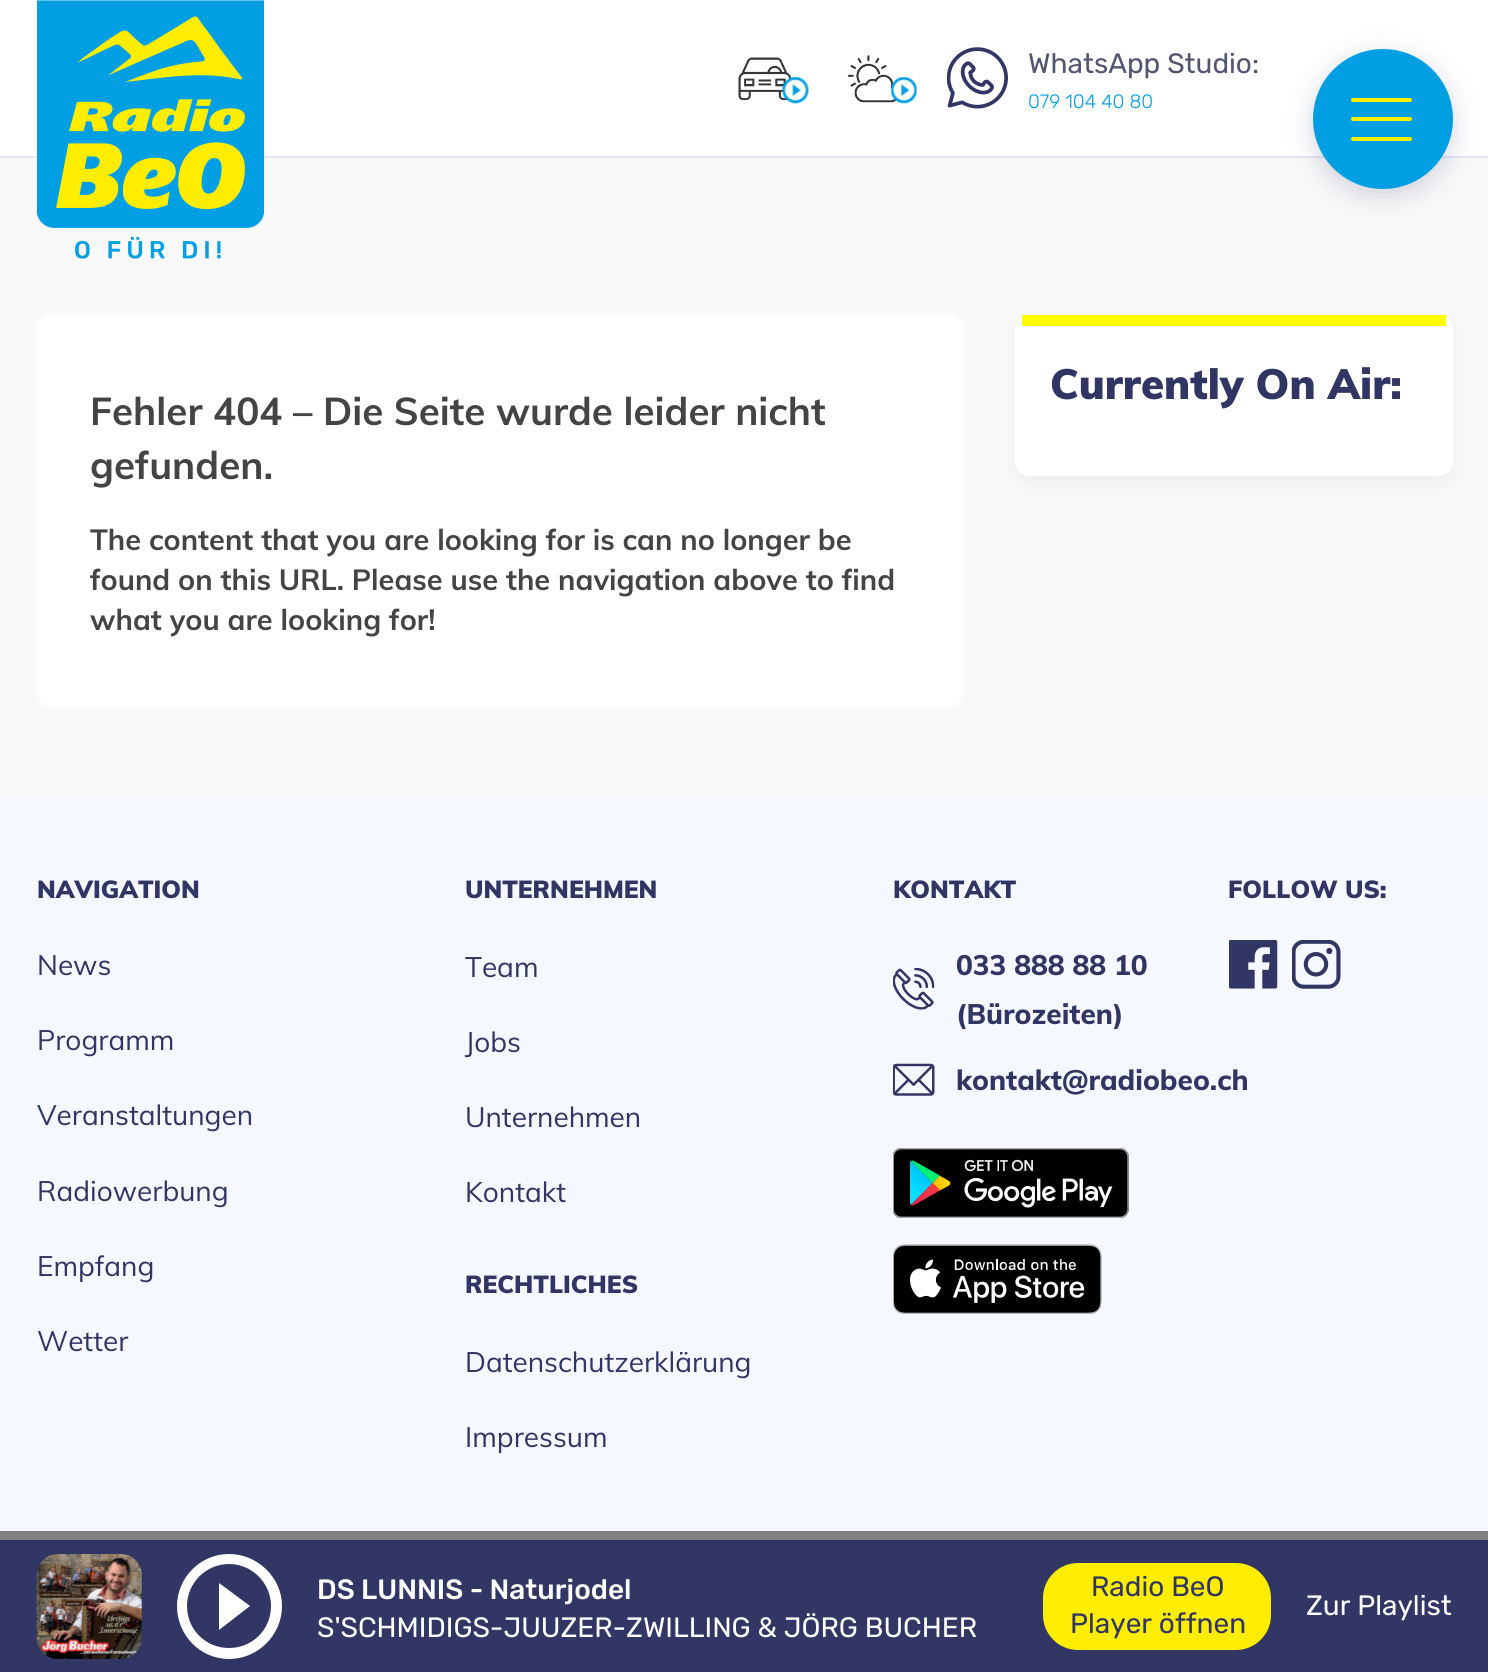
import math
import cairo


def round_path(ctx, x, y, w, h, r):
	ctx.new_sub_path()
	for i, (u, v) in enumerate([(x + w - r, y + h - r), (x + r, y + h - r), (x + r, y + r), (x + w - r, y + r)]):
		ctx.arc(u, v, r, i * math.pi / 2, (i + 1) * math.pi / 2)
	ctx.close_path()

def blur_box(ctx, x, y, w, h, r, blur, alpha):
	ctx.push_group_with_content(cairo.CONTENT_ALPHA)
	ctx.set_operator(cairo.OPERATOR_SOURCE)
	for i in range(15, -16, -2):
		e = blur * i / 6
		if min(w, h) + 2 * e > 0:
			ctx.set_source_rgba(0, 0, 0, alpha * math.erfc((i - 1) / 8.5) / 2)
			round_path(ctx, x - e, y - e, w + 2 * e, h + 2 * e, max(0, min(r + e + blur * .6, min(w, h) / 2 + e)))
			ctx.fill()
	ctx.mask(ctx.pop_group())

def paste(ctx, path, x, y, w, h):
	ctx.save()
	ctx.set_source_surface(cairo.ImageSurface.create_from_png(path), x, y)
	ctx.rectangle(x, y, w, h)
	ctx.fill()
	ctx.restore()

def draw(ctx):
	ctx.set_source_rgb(0.976, 0.976, 0.976)
	ctx.paint()
	ctx.set_source_rgb(1, 1, 1)
	ctx.rectangle(0, 0, 1488, 156)
	ctx.fill()
	ctx.set_source_rgb(0.898, 0.91, 0.973)
	ctx.rectangle(0, 156, 1488, 2)
	ctx.fill()
	paste(ctx, 'media/1.png', 37, 0, 227, 259)
	paste(ctx, 'media/2.png', 738, 57, 54, 43)
	paste(ctx, 'media/3.png', 782, 77, 27, 27)
	paste(ctx, 'media/4.png', 847, 55, 50, 48)
	paste(ctx, 'media/5.png', 890, 77, 28, 27)
	paste(ctx, 'media/6.png', 947, 47, 61, 62)
	ctx.select_font_face('Rubik')
	ctx.set_font_size(28)
	ctx.set_source_rgb(0.322, 0.333, 0.443)
	ctx.move_to(1028, 73)
	ctx.show_text('WhatsApp Studio:')
	ctx.select_font_face('Rubik Light')
	ctx.set_font_size(19.25)
	ctx.set_source_rgb(0, 0.624, 0.89)
	ctx.move_to(1028, 108)
	ctx.show_text('079 104 40 80')
	ctx.set_source_rgb(0.192, 0.212, 0.392)
	blur_box(ctx, 1313, 56, 140, 140, 70, 13, 0.2)
	ctx.set_source_rgb(0, 0.624, 0.89)
	ctx.arc(1383, 119, 70, 0, 2 * math.pi)
	ctx.fill()
	ctx.set_source_rgb(1, 0.929, 0)
	round_path(ctx, 1351, 117, 61, 4, 2)
	ctx.fill()
	round_path(ctx, 1351, 98, 61, 4, 2)
	ctx.fill()
	round_path(ctx, 1351, 137, 61, 4, 2)
	ctx.fill()
	ctx.set_source_rgb(0, 0, 0)
	blur_box(ctx, 1015, 322, 438, 161, 14, 9, 0.05)
	ctx.set_source_rgb(1, 1, 1)
	round_path(ctx, 1015, 315, 438, 161, 14)
	ctx.fill()
	ctx.set_source_rgb(1, 1, 0)
	ctx.rectangle(1022, 315, 424, 11)
	ctx.fill()
	ctx.select_font_face('Muli Black')
	ctx.set_font_size(42)
	ctx.set_source_rgb(0.188, 0.208, 0.392)
	ctx.move_to(1050, 399)
	ctx.show_text('Currently On Air:')
	ctx.set_source_rgb(1, 1, 1)
	round_path(ctx, 37, 315, 926, 392, 14)
	ctx.fill()
	ctx.select_font_face('Muli', cairo.FONT_SLANT_NORMAL, cairo.FONT_WEIGHT_BOLD)
	ctx.set_font_size(38.5)
	ctx.set_source_rgb(0.267, 0.267, 0.267)
	ctx.move_to(90, 425)
	ctx.show_text('Fehler 404 – Die Seite wurde leider nicht')
	ctx.move_to(90, 479)
	ctx.show_text('gefunden.')
	ctx.set_font_size(28.9)
	for x, y, s in [
		(90, 550, 'The content that you are looking for is can no longer be'),
		(90, 590, 'found on this URL. Please use the navigation above to find'),
		(90, 630, 'what you are looking for!'),
	]:
		ctx.move_to(x, y)
		ctx.show_text(s)
	ctx.set_source_rgb(0.961, 0.969, 1)
	ctx.rectangle(0, 795, 1488, 736)
	ctx.fill()
	ctx.select_font_face('Muli Black')
	ctx.set_font_size(24.5)
	ctx.set_source_rgb(0.188, 0.208, 0.392)
	ctx.move_to(37, 898)
	ctx.show_text('NAVIGATION')
	ctx.select_font_face('Muli')
	ctx.set_font_size(28)
	for x, y, s in [
		(37, 975, 'News'),
		(37, 1050, 'Programm'),
		(37, 1125, 'Veranstaltungen'),
		(37, 1201, 'Radiowerbung'),
		(37, 1276, 'Empfang'),
		(37, 1351, 'Wetter'),
	]:
		ctx.move_to(x, y)
		ctx.show_text(s)
	ctx.select_font_face('Muli Black')
	ctx.set_font_size(24.5)
	ctx.move_to(465, 898)
	ctx.show_text('UNTERNEHMEN')
	ctx.select_font_face('Muli')
	ctx.set_font_size(28)
	for x, y, s in [
		(465, 977, 'Team'),
		(465, 1052, 'Jobs'),
		(465, 1127, 'Unternehmen'),
		(465, 1202, 'Kontakt'),
	]:
		ctx.move_to(x, y)
		ctx.show_text(s)
	ctx.select_font_face('Muli Black')
	ctx.set_font_size(24.5)
	ctx.move_to(465, 1293)
	ctx.show_text('RECHTLICHES')
	ctx.select_font_face('Muli')
	ctx.set_font_size(28)
	ctx.move_to(465, 1372)
	ctx.show_text('Datenschutzerklärung')
	ctx.move_to(465, 1447)
	ctx.show_text('Impressum')
	ctx.select_font_face('Muli Black')
	ctx.set_font_size(24.5)
	ctx.move_to(893, 898)
	ctx.show_text('KONTAKT')
	paste(ctx, 'media/7.png', 893, 967, 42, 43)
	ctx.select_font_face('Muli ExtraBold')
	ctx.set_font_size(28)
	ctx.move_to(956, 975)
	ctx.show_text('033 888 88 10')
	ctx.move_to(956, 1024)
	ctx.show_text('(Bürozeiten)')
	paste(ctx, 'media/8.png', 893, 1063, 42, 33)
	ctx.move_to(956, 1090)
	ctx.show_text('kontakt@radiobeo.ch')
	paste(ctx, 'media/9.png', 893, 1148, 236, 70)
	paste(ctx, 'media/10.png', 893, 1244, 209, 70)
	ctx.select_font_face('Muli Black')
	ctx.set_font_size(24.5)
	ctx.move_to(1228, 898)
	ctx.show_text('FOLLOW US:')
	paste(ctx, 'media/11.png', 1229, 940, 49, 49)
	paste(ctx, 'media/12.png', 1292, 940, 49, 49)
	ctx.set_source_rgb(0.192, 0.212, 0.392)
	ctx.rectangle(0, 1540, 1488, 132)
	ctx.fill()
	ctx.set_source_rgb(0.502, 0.502, 0.502)
	ctx.rectangle(0, 1531, 1488, 9)
	ctx.fill()
	paste(ctx, 'media/13.png', 36, 1554, 106, 105)
	ctx.set_source_rgb(1, 1, 1)
	ctx.new_path()
	ctx.move_to(219, 1630)
	ctx.line_to(250, 1606)
	ctx.line_to(219, 1583)
	ctx.close_path()
	ctx.move_to(229, 1554)
	ctx.curve_to(200, 1554, 177, 1578, 177, 1606)
	ctx.curve_to(177, 1635, 200, 1659, 229, 1659)
	ctx.curve_to(258, 1659, 282, 1635, 282, 1606)
	ctx.curve_to(282, 1578, 258, 1554, 229, 1554)
	ctx.close_path()
	ctx.move_to(229, 1648)
	ctx.curve_to(206, 1648, 187, 1630, 187, 1606)
	ctx.curve_to(187, 1583, 206, 1564, 229, 1564)
	ctx.curve_to(252, 1564, 271, 1583, 271, 1606)
	ctx.curve_to(271, 1630, 252, 1648, 229, 1648)
	ctx.close_path()
	ctx.fill()
	ctx.select_font_face('Rubik Medium')
	ctx.set_font_size(28)
	ctx.move_to(317, 1599)
	ctx.show_text('DS LUNNIS - Naturjodel')
	ctx.select_font_face('Rubik')
	ctx.move_to(317, 1637)
	ctx.show_text('S\'SCHMIDIGS-JUUZER-ZWILLING & JÖRG BUCHER')
	ctx.set_source_rgb(1, 0.929, 0)
	round_path(ctx, 1043, 1563, 228, 87, 35)
	ctx.fill()
	ctx.set_source_rgb(0.188, 0.208, 0.392)
	ctx.move_to(1091, 1596)
	ctx.show_text('Radio BeO')
	ctx.move_to(1070, 1633)
	ctx.show_text('Player öffnen')
	ctx.set_source_rgb(1, 1, 1)
	ctx.move_to(1306, 1615)
	ctx.show_text('Zur Playlist')


surface = cairo.ImageSurface(cairo.FORMAT_RGB24, 1488, 1672)
ctx = cairo.Context(surface)
options = cairo.FontOptions()
options.set_hint_metrics(cairo.HINT_METRICS_OFF)
options.set_hint_style(cairo.HINT_STYLE_NONE)
ctx.set_font_options(options)
ctx.set_miter_limit(4)
draw(ctx)
surface.write_to_png('image.png')
